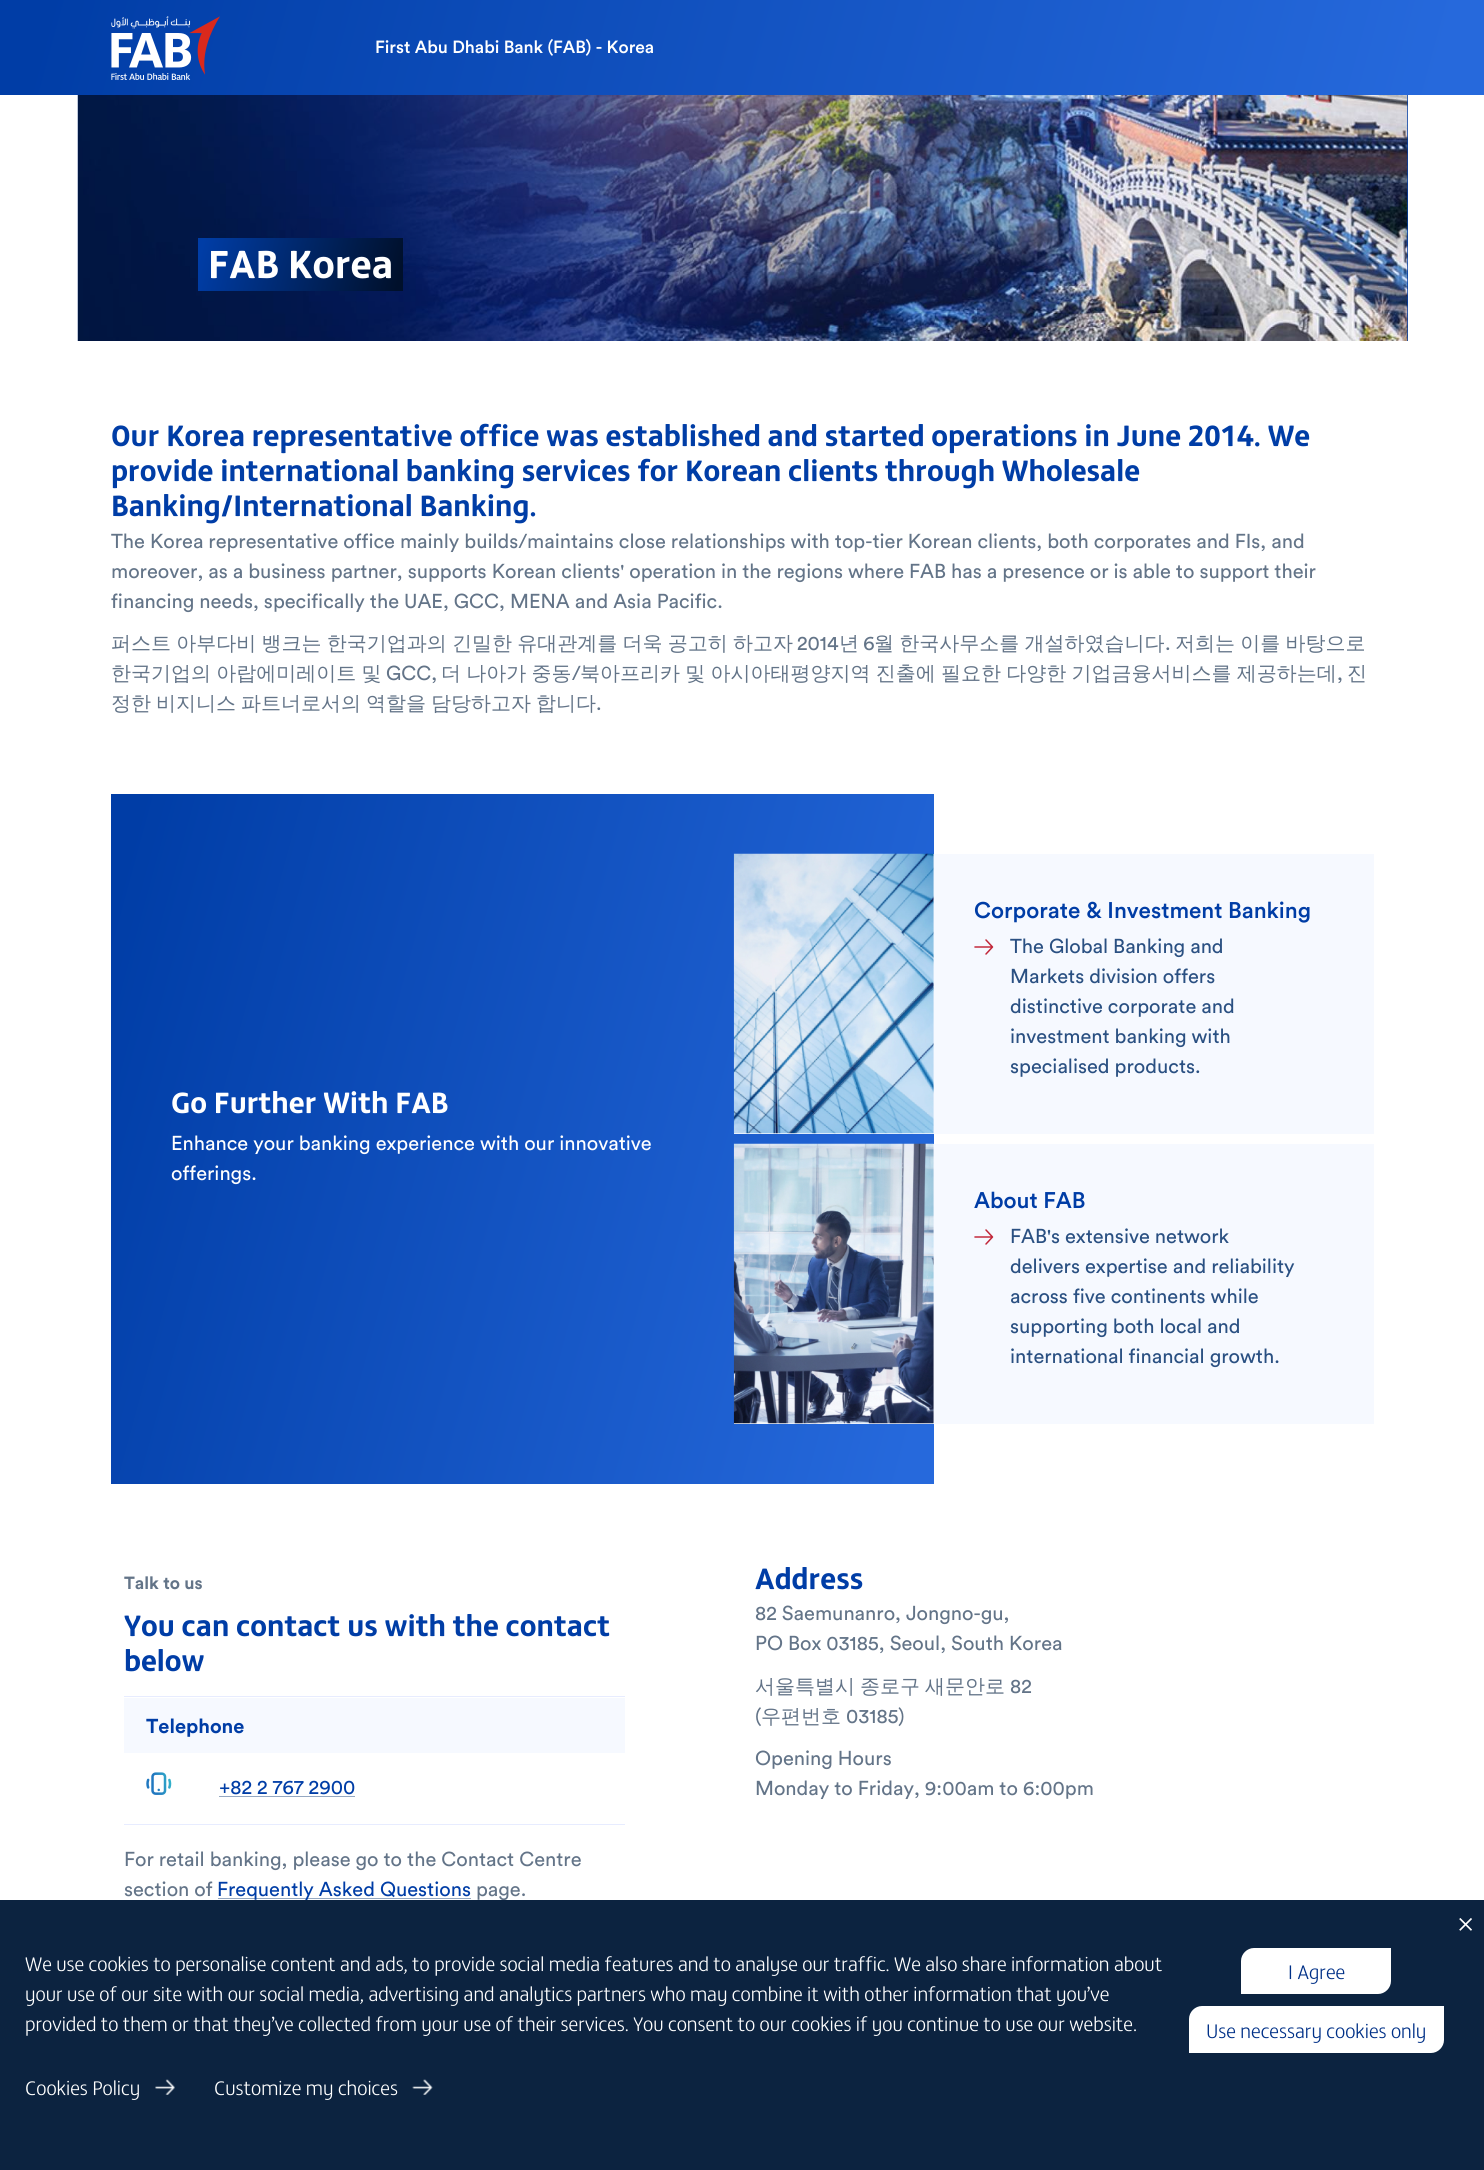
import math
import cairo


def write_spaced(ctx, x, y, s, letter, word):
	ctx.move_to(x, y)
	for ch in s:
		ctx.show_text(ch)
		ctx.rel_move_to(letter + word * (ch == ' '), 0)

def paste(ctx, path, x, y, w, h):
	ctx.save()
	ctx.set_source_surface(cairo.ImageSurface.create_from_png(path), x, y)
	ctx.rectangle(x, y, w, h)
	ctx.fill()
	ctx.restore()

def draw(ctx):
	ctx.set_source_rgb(1, 1, 1)
	ctx.paint()
	gradient = cairo.LinearGradient(39, -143, 1446, 238)
	gradient.add_color_stop_rgba(0.03, 0, 0.239, 0.651, 1)
	gradient.add_color_stop_rgba(0.97, 0.149, 0.412, 0.863, 1)
	ctx.set_source(gradient)
	ctx.rectangle(0, 0, 1484, 95)
	ctx.fill()
	paste(ctx, 'media/1.png', 111, 16, 109, 64)
	ctx.select_font_face('Circular Medium')
	ctx.set_font_size(17.5)
	ctx.set_source_rgb(1, 1, 1)
	ctx.move_to(375, 53)
	ctx.show_text('First Abu Dhabi Bank (FAB) - Korea')
	ctx.set_source_rgb(0, 0.239, 0.651)
	ctx.rectangle(1407, 95, 1, 246)
	ctx.fill()
	paste(ctx, 'media/2.png', 77, 95, 1331, 246)
	gradient = cairo.LinearGradient(50, 208, 1435, -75)
	gradient.add_color_stop_rgba(0.23, 0, 0, 0, 0.4)
	gradient.add_color_stop_rgba(0.73, 0, 0, 0, 0)
	ctx.set_source(gradient)
	ctx.rectangle(78, 95, 1013, 246)
	ctx.fill()
	gradient = cairo.LinearGradient(198, 237, 402, 292)
	gradient.add_color_stop_rgba(0.03, 0, 0.239, 0.651, 1)
	gradient.add_color_stop_rgba(0.97, 0, 0.063, 0.169, 1)
	ctx.set_source(gradient)
	ctx.rectangle(198, 238, 205, 53)
	ctx.fill()
	ctx.select_font_face('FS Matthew', cairo.FONT_SLANT_NORMAL, cairo.FONT_WEIGHT_BOLD)
	ctx.set_font_size(40)
	ctx.set_source_rgb(1, 1, 1)
	ctx.move_to(208, 278)
	ctx.show_text('FAB Korea')
	ctx.set_font_size(30)
	ctx.set_source_rgb(0, 0.239, 0.651)
	for x, y, s in [
		(111, 446, 'Our Korea representative office was established and started operations in June 2014. We'),
		(111, 481, 'provide international banking services for Korean clients through Wholesale'),
		(111, 516, 'Banking/International Banking.'),
	]:
		ctx.move_to(x, y)
		ctx.show_text(s)
	ctx.select_font_face('Circular')
	ctx.set_font_size(20)
	ctx.set_source_rgb(0.388, 0.455, 0.533)
	for x, y, s in [
		(111, 548, 'The Korea representative office mainly builds/maintains close relationships with top-tier Korean clients, both corporates and FIs, and'),
		(111, 578, 'moreover, as a business partner, supports Korean clients\' operation in the regions where FAB has a presence or is able to support their'),
		(111, 608, 'financing needs, specifically the UAE, GCC, MENA and Asia Pacific.'),
	]:
		ctx.move_to(x, y)
		ctx.show_text(s)
	ctx.select_font_face('WenQuanYi Zen Hei Medium')
	write_spaced(ctx, 111, 650, '퍼스트 아부다비 뱅크는 한국기업과의 긴밀한 유대관계를 더욱 공고히 하고자', 0, -0.75)
	ctx.select_font_face('Circular')
	ctx.move_to(797, 650)
	ctx.show_text('2014')
	ctx.select_font_face('WenQuanYi Zen Hei Medium')
	ctx.move_to(839, 650)
	ctx.show_text('년')
	ctx.select_font_face('Circular')
	ctx.move_to(863, 650)
	ctx.show_text('6')
	ctx.select_font_face('WenQuanYi Zen Hei Medium')
	write_spaced(ctx, 874, 650, '월 한국사무소를 개설하였습니다', 0, -0.75)
	ctx.select_font_face('Circular')
	ctx.move_to(1165, 650)
	ctx.show_text('.')
	ctx.select_font_face('WenQuanYi Zen Hei Medium')
	write_spaced(ctx, 1175, 650, '저희는 이를 바탕으로', 0, -0.75)
	write_spaced(ctx, 111, 680, '한국기업의 아랍에미레이트 및', 0, -0.75)
	ctx.select_font_face('Circular')
	ctx.move_to(386, 680)
	ctx.show_text('GCC,')
	ctx.select_font_face('WenQuanYi Zen Hei Medium')
	write_spaced(ctx, 441, 680, '더 나아가 중동', 0, -0.75)
	ctx.select_font_face('Circular')
	ctx.move_to(572, 680)
	ctx.show_text('/')
	ctx.select_font_face('WenQuanYi Zen Hei Medium')
	write_spaced(ctx, 580, 680, '북아프리카 및 아시아태평양지역 진출에 필요한 다양한 기업금융서비스를 제공하는데', 0, -0.75)
	ctx.select_font_face('Circular')
	ctx.move_to(1337, 680)
	ctx.show_text(',')
	ctx.select_font_face('WenQuanYi Zen Hei Medium')
	ctx.move_to(1347, 680)
	ctx.show_text('진')
	write_spaced(ctx, 111, 710, '정한 비지니스 파트너로서의 역할을 담당하고자 합니다', 0, -1)
	ctx.select_font_face('Circular')
	ctx.move_to(596, 710)
	ctx.show_text('.')
	gradient = cairo.LinearGradient(52, 1011, 993, 1266)
	gradient.add_color_stop_rgba(0.03, 0, 0.239, 0.651, 1)
	gradient.add_color_stop_rgba(0.97, 0.149, 0.412, 0.863, 1)
	ctx.set_source(gradient)
	ctx.rectangle(111, 794, 823, 690)
	ctx.fill()
	ctx.set_source_rgb(0.961, 0.976, 1)
	ctx.rectangle(734, 854, 640, 280)
	ctx.fill()
	paste(ctx, 'media/3.png', 733, 853, 201, 281)
	ctx.select_font_face('Circular Medium')
	ctx.set_font_size(22.5)
	ctx.set_source_rgb(0, 0.239, 0.651)
	ctx.move_to(974, 918)
	ctx.show_text('Corporate & Investment Banking')
	ctx.new_path()
	ctx.move_to(986, 940)
	ctx.line_to(992.5, 947)
	ctx.move_to(992.5, 947)
	ctx.line_to(986, 954)
	ctx.move_to(992.5, 947)
	ctx.line_to(975, 947)
	ctx.set_source_rgb(0.757, 0.149, 0.22)
	ctx.set_line_width(1.5)
	ctx.set_line_cap(cairo.LINE_CAP_ROUND)
	ctx.set_line_join(cairo.LINE_JOIN_ROUND)
	ctx.stroke()
	ctx.select_font_face('Circular')
	ctx.set_font_size(20)
	ctx.set_source_rgb(0.165, 0.314, 0.51)
	for x, y, s in [
		(1010, 953, 'The Global Banking and'),
		(1010, 983, 'Markets division offers'),
		(1010, 1013, 'distinctive corporate and'),
		(1010, 1043, 'investment banking with'),
		(1010, 1073, 'specialised products.'),
	]:
		ctx.move_to(x, y)
		ctx.show_text(s)
	ctx.set_source_rgb(0.961, 0.976, 1)
	ctx.rectangle(734, 1144, 640, 280)
	ctx.fill()
	paste(ctx, 'media/4.png', 733, 1143, 201, 281)
	ctx.select_font_face('Circular Medium')
	ctx.set_font_size(22.5)
	ctx.set_source_rgb(0, 0.239, 0.651)
	ctx.move_to(974, 1208)
	ctx.show_text('About FAB')
	ctx.new_path()
	ctx.move_to(986, 1230)
	ctx.line_to(992.5, 1237)
	ctx.move_to(992.5, 1237)
	ctx.line_to(986, 1244)
	ctx.move_to(992.5, 1237)
	ctx.line_to(975, 1237)
	ctx.set_source_rgb(0.757, 0.149, 0.22)
	ctx.stroke()
	ctx.select_font_face('Circular')
	ctx.set_font_size(20)
	ctx.set_source_rgb(0.165, 0.314, 0.51)
	for x, y, s in [
		(1010, 1243, 'FAB\'s extensive network'),
		(1010, 1273, 'delivers expertise and reliability'),
		(1010, 1303, 'across five continents while'),
		(1010, 1333, 'supporting both local and'),
		(1010, 1363, 'international financial growth.'),
	]:
		ctx.move_to(x, y)
		ctx.show_text(s)
	ctx.select_font_face('FS Matthew', cairo.FONT_SLANT_NORMAL, cairo.FONT_WEIGHT_BOLD)
	ctx.set_font_size(30)
	ctx.set_source_rgb(1, 1, 1)
	ctx.move_to(171, 1113)
	ctx.show_text('Go Further With FAB')
	ctx.select_font_face('Circular')
	ctx.set_font_size(20)
	ctx.move_to(171, 1150)
	ctx.show_text('Enhance your banking experience with our innovative')
	ctx.move_to(171, 1180)
	ctx.show_text('offerings.')
	ctx.select_font_face('Circular', cairo.FONT_SLANT_NORMAL, cairo.FONT_WEIGHT_BOLD)
	ctx.set_font_size(17.5)
	ctx.set_source_rgb(0.388, 0.455, 0.533)
	ctx.move_to(124, 1589)
	ctx.show_text('Talk to us')
	ctx.select_font_face('FS Matthew', cairo.FONT_SLANT_NORMAL, cairo.FONT_WEIGHT_BOLD)
	ctx.set_font_size(30)
	ctx.set_source_rgb(0, 0.239, 0.651)
	ctx.move_to(124, 1636)
	ctx.show_text('You can contact us with the contact')
	ctx.move_to(124, 1671)
	ctx.show_text('below')
	ctx.set_source_rgb(0.906, 0.922, 1)
	ctx.rectangle(124, 1696, 501, 1)
	ctx.rectangle(124, 1824, 501, 1)
	ctx.fill()
	ctx.set_source_rgb(0.961, 0.976, 1)
	ctx.rectangle(124, 1698, 501, 55)
	ctx.fill()
	ctx.select_font_face('Circular', cairo.FONT_SLANT_NORMAL, cairo.FONT_WEIGHT_BOLD)
	ctx.set_font_size(20)
	ctx.set_source_rgb(0, 0.239, 0.651)
	ctx.move_to(146, 1733)
	ctx.show_text('Telephone')
	paste(ctx, 'media/5.png', 146, 1772, 26, 23)
	ctx.select_font_face('Circular')
	ctx.move_to(219, 1794)
	ctx.show_text('+82 2 767 2900')
	ctx.set_source_rgb(0.584, 0.659, 0.757)
	ctx.rectangle(219, 1796, 136, 1)
	ctx.fill()
	ctx.set_source_rgb(0.388, 0.455, 0.533)
	ctx.move_to(124, 1866)
	ctx.show_text('For retail banking, please go to the Contact Centre')
	ctx.move_to(124, 1896)
	ctx.show_text('section of')
	ctx.set_source_rgb(0.584, 0.659, 0.757)
	ctx.rectangle(218, 1898, 253, 1)
	ctx.fill()
	ctx.set_source_rgb(0, 0.239, 0.651)
	ctx.move_to(217, 1896)
	ctx.show_text('Frequently Asked Questions')
	ctx.set_source_rgb(0.388, 0.455, 0.533)
	ctx.move_to(476, 1896)
	ctx.show_text('page.')
	ctx.select_font_face('FS Matthew', cairo.FONT_SLANT_NORMAL, cairo.FONT_WEIGHT_BOLD)
	ctx.set_font_size(30)
	ctx.set_source_rgb(0, 0.239, 0.651)
	ctx.move_to(755, 1589)
	ctx.show_text('Address')
	ctx.select_font_face('Circular')
	ctx.set_font_size(20)
	ctx.set_source_rgb(0.388, 0.455, 0.533)
	ctx.move_to(755, 1620)
	ctx.show_text('82 Saemunanro, Jongno-gu,')
	ctx.move_to(755, 1650)
	ctx.show_text('PO Box 03185, Seoul, South Korea')
	ctx.select_font_face('WenQuanYi Zen Hei Medium')
	write_spaced(ctx, 755, 1693, '서울특별시 종로구 새문안로', 0, -1)
	ctx.select_font_face('Circular')
	ctx.move_to(1010, 1693)
	ctx.show_text('82')
	ctx.move_to(755, 1723)
	ctx.show_text('(')
	ctx.select_font_face('WenQuanYi Zen Hei Medium')
	ctx.move_to(761, 1723)
	ctx.show_text('우편번호')
	ctx.select_font_face('Circular')
	for x, y, s in [
		(846, 1723, '03185)'),
		(755, 1765, 'Opening Hours'),
		(755, 1795, 'Monday to Friday, 9:00am to 6:00pm'),
	]:
		ctx.move_to(x, y)
		ctx.show_text(s)
	ctx.set_source_rgb(0.047, 0.137, 0.251)
	ctx.rectangle(0, 1900, 1484, 270)
	ctx.fill()
	paste(ctx, 'media/6.png', 1459, 1918, 13, 13)
	ctx.select_font_face('FS Matthew Light')
	ctx.set_source_rgb(1, 1, 1)
	for x, y, s in [
		(25, 1971, 'We use cookies to personalise content and ads, to provide social media features and to analyse our traffic. We also share information about'),
		(25, 2001, 'your use of our site with our social media, advertising and analytics partners who may combine it with other information that you’ve'),
		(25, 2031, 'provided to them or that they’ve collected from your use of their services. You consent to our cookies if you continue to use our website.'),
		(25, 2095, 'Cookies Policy'),
	]:
		ctx.move_to(x, y)
		ctx.show_text(s)
	paste(ctx, 'media/7.png', 155, 2079, 20, 16)
	ctx.move_to(214, 2095)
	ctx.show_text('Customize my choices')
	paste(ctx, 'media/8.png', 412, 2079, 21, 16)
	ctx.new_path()
	ctx.move_to(1254, 1948)
	ctx.line_to(1391, 1948)
	ctx.line_to(1391, 1981)
	ctx.curve_to(1391, 1988, 1385, 1994, 1378, 1994)
	ctx.line_to(1241, 1994)
	ctx.line_to(1241, 1961)
	ctx.curve_to(1241, 1954, 1247, 1948, 1254, 1948)
	ctx.close_path()
	ctx.fill()
	ctx.set_source_rgb(0, 0.188, 0.529)
	ctx.move_to(1288, 1979)
	ctx.show_text('I Agree')
	ctx.set_source_rgb(1, 1, 1)
	ctx.new_path()
	ctx.move_to(1202, 2006)
	ctx.line_to(1444, 2006)
	ctx.line_to(1444, 2040)
	ctx.curve_to(1444, 2047, 1438, 2053, 1431, 2053)
	ctx.line_to(1189, 2053)
	ctx.line_to(1189, 2019)
	ctx.curve_to(1189, 2012, 1195, 2006, 1202, 2006)
	ctx.close_path()
	ctx.fill()
	ctx.set_source_rgb(0, 0.188, 0.529)
	ctx.move_to(1206, 2038)
	ctx.show_text('Use necessary cookies only')


surface = cairo.ImageSurface(cairo.FORMAT_RGB24, 1484, 2170)
ctx = cairo.Context(surface)
options = cairo.FontOptions()
options.set_hint_metrics(cairo.HINT_METRICS_OFF)
options.set_hint_style(cairo.HINT_STYLE_NONE)
ctx.set_font_options(options)
ctx.set_miter_limit(4)
draw(ctx)
surface.write_to_png('image.png')
